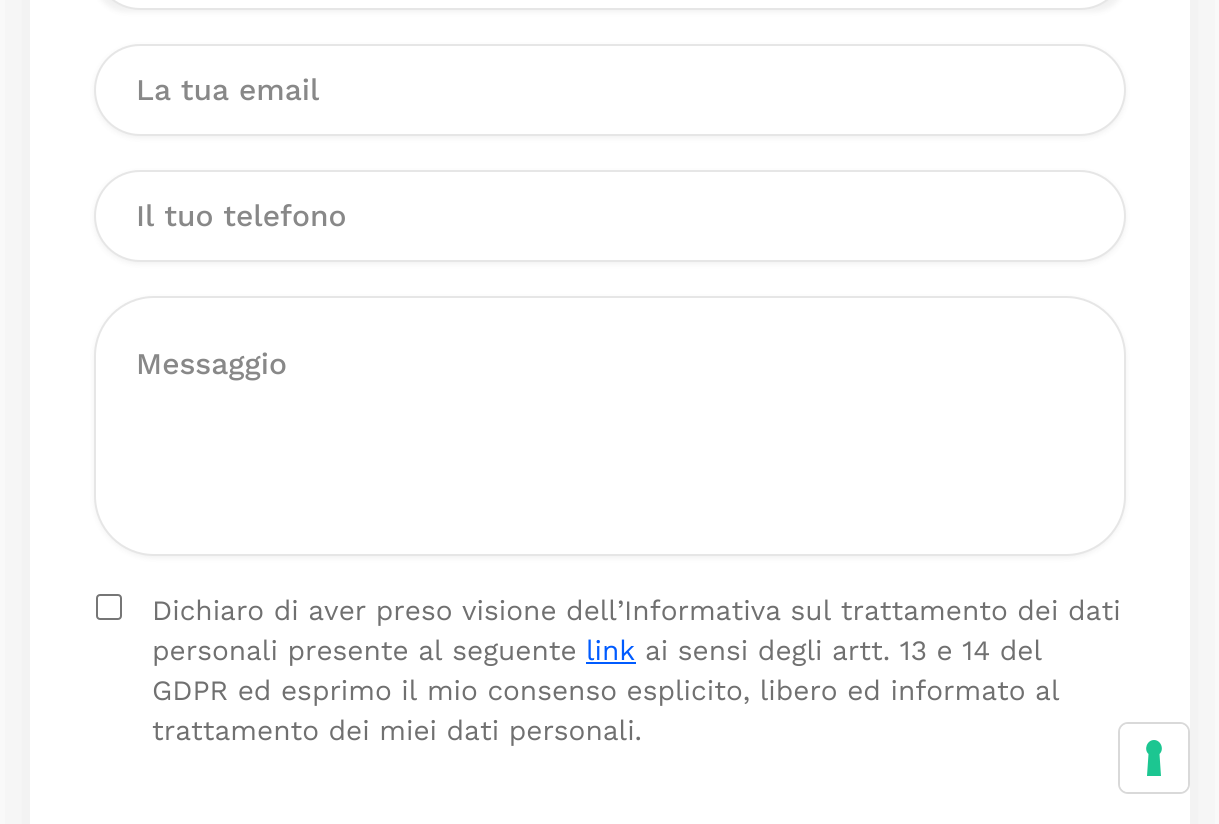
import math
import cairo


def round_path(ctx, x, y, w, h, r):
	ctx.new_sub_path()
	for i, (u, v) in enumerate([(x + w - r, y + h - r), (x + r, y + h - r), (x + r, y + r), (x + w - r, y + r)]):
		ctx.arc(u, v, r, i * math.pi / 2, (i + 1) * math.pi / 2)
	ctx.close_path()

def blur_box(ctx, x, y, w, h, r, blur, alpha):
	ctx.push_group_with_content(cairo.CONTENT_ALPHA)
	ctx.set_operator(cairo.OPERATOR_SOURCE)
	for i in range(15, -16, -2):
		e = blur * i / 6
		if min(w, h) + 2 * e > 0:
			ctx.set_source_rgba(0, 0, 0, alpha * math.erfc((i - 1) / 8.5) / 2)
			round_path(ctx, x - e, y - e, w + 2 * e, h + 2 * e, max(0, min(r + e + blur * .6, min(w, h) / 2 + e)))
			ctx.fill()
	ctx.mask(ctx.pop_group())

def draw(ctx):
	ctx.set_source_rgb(1, 1, 1)
	ctx.paint()
	ctx.save()
	ctx.set_fill_rule(cairo.FILL_RULE_EVEN_ODD)
	ctx.new_path()
	ctx.move_to(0, 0)
	ctx.line_to(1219, 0)
	ctx.line_to(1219, 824)
	ctx.line_to(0, 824)
	ctx.close_path()
	ctx.move_to(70, -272)
	ctx.line_to(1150, -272)
	ctx.curve_to(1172, -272, 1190, -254, 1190, -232)
	ctx.line_to(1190, 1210)
	ctx.curve_to(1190, 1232, 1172, 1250, 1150, 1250)
	ctx.line_to(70, 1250)
	ctx.curve_to(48, 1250, 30, 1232, 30, 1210)
	ctx.line_to(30, -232)
	ctx.curve_to(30, -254, 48, -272, 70, -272)
	ctx.close_path()
	ctx.clip()
	ctx.set_source_rgb(0, 0, 0)
	blur_box(ctx, 30, -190, 1160, 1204, 40, 50, 0.1)
	ctx.restore()
	ctx.set_source_rgb(0, 0, 0)
	blur_box(ctx, 94, -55, 1032, 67, 46, 3, 0.06)
	ctx.set_source_rgb(1, 1, 1)
	round_path(ctx, 95, -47, 1030, 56, 45)
	ctx.fill_preserve()
	ctx.set_source_rgb(0.902, 0.902, 0.902)
	ctx.stroke()
	ctx.set_source_rgb(0, 0, 0)
	blur_box(ctx, 94, 46, 1032, 92, 46, 3, 0.06)
	ctx.set_source_rgb(1, 1, 1)
	round_path(ctx, 95, 45, 1030, 90, 45)
	ctx.fill_preserve()
	ctx.set_source_rgb(0.902, 0.902, 0.902)
	ctx.stroke()
	ctx.select_font_face('Work Sans Medium')
	ctx.set_font_size(30)
	ctx.set_source_rgb(0.533, 0.533, 0.533)
	ctx.move_to(136, 100)
	ctx.show_text('La tua email')
	ctx.set_source_rgb(0, 0, 0)
	blur_box(ctx, 94, 172, 1032, 92, 46, 3, 0.06)
	ctx.set_source_rgb(1, 1, 1)
	round_path(ctx, 95, 171, 1030, 90, 45)
	ctx.fill_preserve()
	ctx.set_source_rgb(0.902, 0.902, 0.902)
	ctx.stroke()
	ctx.set_source_rgb(0.533, 0.533, 0.533)
	ctx.move_to(136, 226)
	ctx.show_text('Il tuo telefono')
	ctx.set_source_rgb(0, 0, 0)
	blur_box(ctx, 94, 298, 1032, 260, 60, 3, 0.06)
	ctx.set_source_rgb(1, 1, 1)
	round_path(ctx, 95, 297, 1030, 258, 59)
	ctx.fill_preserve()
	ctx.set_source_rgb(0.902, 0.902, 0.902)
	ctx.stroke()
	ctx.set_source_rgb(0.533, 0.533, 0.533)
	ctx.move_to(136, 374)
	ctx.show_text('Messaggio')
	round_path(ctx, 97, 595, 24, 24, 3)
	ctx.set_source_rgb(0.463, 0.463, 0.463)
	ctx.stroke()
	ctx.select_font_face('Work Sans')
	ctx.set_font_size(28)
	ctx.set_source_rgb(0.439, 0.439, 0.439)
	ctx.move_to(152, 620)
	ctx.show_text('Dichiaro di aver preso visione dell’Informativa sul trattamento dei dati')
	ctx.move_to(152, 660)
	ctx.show_text('personali presente al seguente')
	ctx.set_source_rgb(0, 0.357, 1)
	ctx.move_to(586, 660)
	ctx.show_text('link')
	ctx.rectangle(586, 662, 50, 2)
	ctx.fill()
	ctx.set_source_rgb(0.439, 0.439, 0.439)
	for x, y, s in [
		(645, 660, 'ai sensi degli artt. 13 e 14 del'),
		(152, 700, 'GDPR ed esprimo il mio consenso esplicito, libero ed informato al'),
		(152, 740, 'trattamento dei miei dati personali.'),
	]:
		ctx.move_to(x, y)
		ctx.show_text(s)
	round_path(ctx, 1119, 723, 70, 70, 9)
	ctx.set_source_rgb(0.851, 0.851, 0.851)
	ctx.stroke()
	ctx.set_source_rgb(1, 1, 1)
	round_path(ctx, 1120, 724, 68, 68, 8)
	ctx.fill()
	ctx.set_source_rgb(0.11, 0.776, 0.569)
	ctx.set_fill_rule(cairo.FILL_RULE_EVEN_ODD)
	ctx.new_path()
	ctx.move_to(1154, 740)
	ctx.curve_to(1161, 740, 1164.5, 749.5, 1159.5, 754)
	ctx.line_to(1161, 776)
	ctx.line_to(1147, 776)
	ctx.line_to(1148.5, 754)
	ctx.curve_to(1143.5, 749.5, 1147, 740, 1154, 740)
	ctx.close_path()
	ctx.fill()


surface = cairo.ImageSurface(cairo.FORMAT_RGB24, 1219, 824)
ctx = cairo.Context(surface)
options = cairo.FontOptions()
options.set_hint_metrics(cairo.HINT_METRICS_OFF)
options.set_hint_style(cairo.HINT_STYLE_NONE)
ctx.set_font_options(options)
ctx.set_miter_limit(4)
draw(ctx)
surface.write_to_png('image.png')
